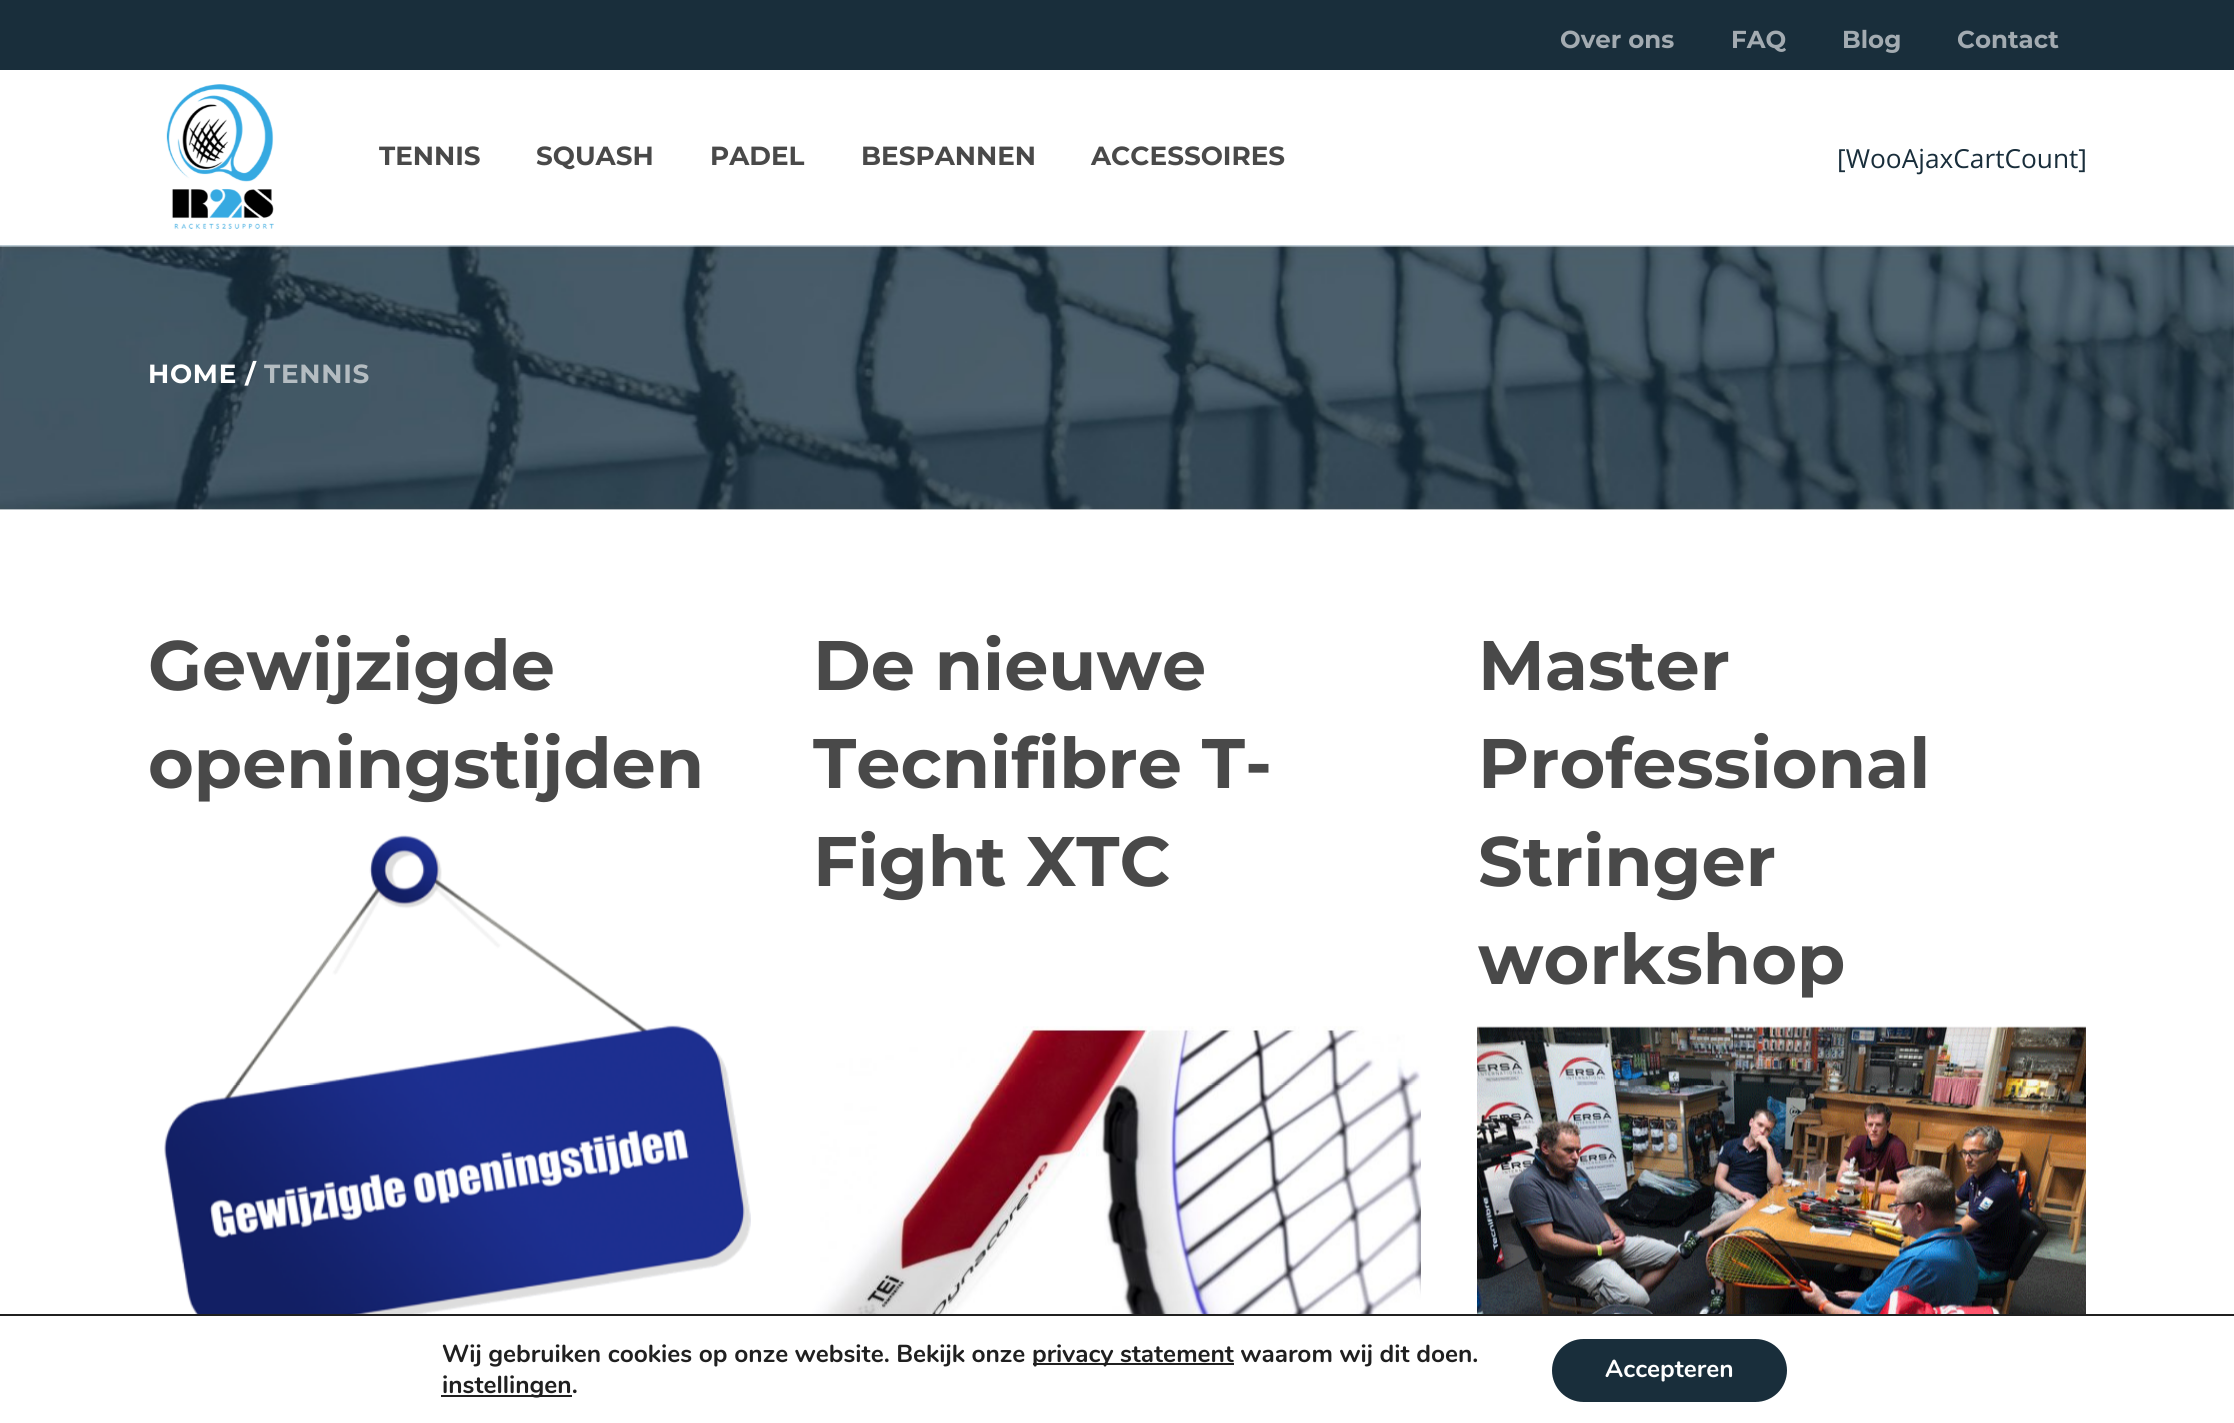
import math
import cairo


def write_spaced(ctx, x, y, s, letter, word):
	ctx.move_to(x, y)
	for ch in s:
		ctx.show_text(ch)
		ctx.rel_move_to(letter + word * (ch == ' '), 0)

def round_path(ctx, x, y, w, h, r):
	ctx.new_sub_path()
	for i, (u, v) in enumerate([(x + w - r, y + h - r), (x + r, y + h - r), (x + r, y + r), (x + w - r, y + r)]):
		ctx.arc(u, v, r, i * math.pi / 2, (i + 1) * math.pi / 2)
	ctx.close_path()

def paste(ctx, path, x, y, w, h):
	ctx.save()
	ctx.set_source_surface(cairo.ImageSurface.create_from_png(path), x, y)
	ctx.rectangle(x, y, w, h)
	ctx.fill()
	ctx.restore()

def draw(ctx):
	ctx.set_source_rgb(1, 1, 1)
	ctx.paint()
	ctx.set_source_rgb(0.098, 0.18, 0.231)
	ctx.rectangle(0, 0, 2234, 70)
	ctx.fill()
	ctx.select_font_face('Montserrat', cairo.FONT_SLANT_NORMAL, cairo.FONT_WEIGHT_BOLD)
	ctx.set_font_size(24.5)
	ctx.set_source_rgb(0.639, 0.671, 0.694)
	for x, y, s in [
		(1560, 48, 'Over ons'),
		(1731, 48, 'FAQ'),
		(1842, 48, 'Blog'),
		(1957, 48, 'Contact'),
	]:
		ctx.move_to(x, y)
		ctx.show_text(s)
	paste(ctx, 'media/1.png', 166, 84, 108, 145)
	ctx.set_font_size(26.25)
	ctx.set_source_rgb(0.286, 0.286, 0.286)
	for x, y, s in [
		(379, 165, 'TENNIS'),
		(536, 165, 'SQUASH'),
		(710, 165, 'PADEL'),
		(861, 165, 'BESPANNEN'),
		(1091, 165, 'ACCESSOIRES'),
	]:
		ctx.move_to(x, y)
		ctx.show_text(s)
	ctx.select_font_face('Open Sans')
	ctx.set_source_rgb(0.098, 0.18, 0.231)
	ctx.move_to(1837, 168)
	ctx.show_text('[WooAjaxCartCount]')
	paste(ctx, 'media/2.png', 0, 245, 2234, 265)
	ctx.select_font_face('Montserrat', cairo.FONT_SLANT_NORMAL, cairo.FONT_WEIGHT_BOLD)
	ctx.set_source_rgb(1, 1, 1)
	write_spaced(ctx, 148, 383, 'HOME /', 0.75, 0)
	ctx.set_source_rgb(0.706, 0.737, 0.757)
	write_spaced(ctx, 264, 383, 'TENNIS', 0.75, 0)
	ctx.set_font_size(70)
	ctx.set_source_rgb(0.286, 0.286, 0.286)
	ctx.move_to(148, 690)
	ctx.show_text('Gewijzigde')
	ctx.move_to(148, 788)
	ctx.show_text('openingstijden')
	paste(ctx, 'media/3.png', 164, 835, 587, 479)
	for x, y, s in [
		(813, 690, 'De nieuwe'),
		(813, 788, 'Tecnifibre T-'),
		(813, 886, 'Fight XTC'),
	]:
		ctx.move_to(x, y)
		ctx.show_text(s)
	paste(ctx, 'media/4.png', 812, 1026, 609, 288)
	for x, y, s in [
		(1478, 690, 'Master'),
		(1478, 788, 'Professional'),
		(1478, 886, 'Stringer'),
		(1478, 984, 'workshop'),
	]:
		ctx.move_to(x, y)
		ctx.show_text(s)
	paste(ctx, 'media/5.png', 1477, 1026, 609, 288)
	ctx.set_source_rgb(0.125, 0.125, 0.125)
	ctx.rectangle(0, 1314, 2234, 2)
	ctx.fill()
	ctx.select_font_face('Nunito', cairo.FONT_SLANT_NORMAL, cairo.FONT_WEIGHT_BOLD)
	ctx.set_font_size(24.5)
	ctx.move_to(442, 1362)
	ctx.show_text('Wij gebruiken cookies op onze website. Bekijk onze')
	ctx.rectangle(1033, 1363, 201, 2)
	ctx.fill()
	ctx.move_to(1032, 1362)
	ctx.show_text('privacy statement waarom wij dit doen.')
	ctx.rectangle(441, 1395, 131, 2)
	ctx.fill()
	ctx.move_to(442, 1393)
	ctx.show_text('instellingen.')
	ctx.set_source_rgb(0.098, 0.18, 0.231)
	round_path(ctx, 1552, 1339, 235, 63, 31.5)
	ctx.fill()
	ctx.set_source_rgb(1, 1, 1)
	ctx.move_to(1605, 1377)
	ctx.show_text('Accepteren')


surface = cairo.ImageSurface(cairo.FORMAT_RGB24, 2234, 1423)
ctx = cairo.Context(surface)
options = cairo.FontOptions()
options.set_hint_metrics(cairo.HINT_METRICS_OFF)
options.set_hint_style(cairo.HINT_STYLE_NONE)
ctx.set_font_options(options)
ctx.set_miter_limit(4)
draw(ctx)
surface.write_to_png('image.png')
